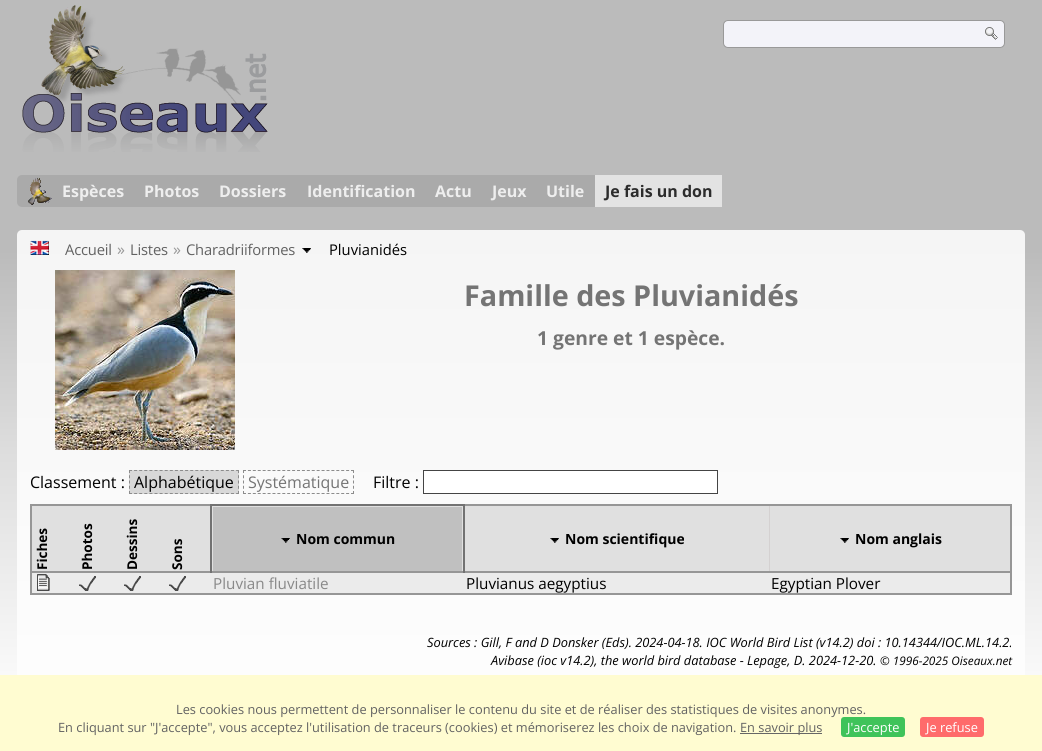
import math
import cairo


def write_spaced(ctx, x, y, s, letter, word):
	ctx.move_to(x, y)
	for ch in s:
		ctx.show_text(ch)
		ctx.rel_move_to(letter + word * (ch == ' '), 0)

def round_path(ctx, x, y, w, h, r):
	ctx.new_sub_path()
	for i, (u, v) in enumerate([(x + w - r, y + h - r), (x + r, y + h - r), (x + r, y + r), (x + w - r, y + r)]):
		ctx.arc(u, v, r, i * math.pi / 2, (i + 1) * math.pi / 2)
	ctx.close_path()

def paste(ctx, path, x, y, w, h):
	ctx.save()
	ctx.set_source_surface(cairo.ImageSurface.create_from_png(path), x, y)
	ctx.rectangle(x, y, w, h)
	ctx.fill()
	ctx.restore()

def draw(ctx):
	ctx.set_source_rgb(1, 1, 1)
	ctx.paint()
	gradient = cairo.LinearGradient(521, 0, 521, 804)
	gradient.add_color_stop_rgba(0, 0.733, 0.733, 0.733, 1)
	gradient.add_color_stop_rgba(0.31, 0.733, 0.733, 0.733, 1)
	gradient.add_color_stop_rgba(0.56, 0.867, 0.867, 0.867, 1)
	gradient.add_color_stop_rgba(0.9, 1, 1, 1, 1)
	gradient.add_color_stop_rgba(1, 1, 1, 1, 1)
	ctx.set_source(gradient)
	ctx.rectangle(0, 0, 1042, 675)
	ctx.fill()
	paste(ctx, 'media/1.png', 22, 5, 246, 147)
	ctx.set_source_rgb(0.953, 0.953, 0.973)
	round_path(ctx, 723.5, 20.5, 281, 27, 4.5)
	ctx.fill_preserve()
	ctx.set_source_rgb(0.6, 0.6, 0.6)
	ctx.set_line_width(1)
	ctx.stroke()
	paste(ctx, 'media/2.png', 985, 27, 13, 13)
	ctx.set_source_rgb(0.667, 0.667, 0.667)
	round_path(ctx, 17, 175, 705, 32, 5)
	ctx.fill()
	paste(ctx, 'media/3.png', 28, 177, 24, 28)
	ctx.select_font_face('Open Sans', cairo.FONT_SLANT_NORMAL, cairo.FONT_WEIGHT_BOLD)
	ctx.set_font_size(16)
	ctx.set_source_rgb(0.933, 0.933, 0.933)
	for x, y, s in [
		(62, 197, 'Espèces'),
		(144, 197, 'Photos'),
		(219, 197, 'Dossiers'),
		(307, 197, 'Identification'),
		(435, 197, 'Actu'),
		(492, 197, 'Jeux'),
		(546, 197, 'Utile'),
	]:
		ctx.move_to(x, y)
		ctx.show_text(s)
	ctx.set_source_rgb(0.89, 0.89, 0.89)
	ctx.rectangle(595, 175, 127, 32)
	ctx.fill()
	ctx.set_source_rgb(0.173, 0.173, 0.173)
	ctx.move_to(605, 197)
	ctx.show_text('Je fais un don')
	gradient = cairo.LinearGradient(521, 230, 521, 716)
	gradient.add_color_stop_rgba(0, 0.961, 0.961, 0.961, 1)
	gradient.add_color_stop_rgba(1, 0.996, 0.996, 0.996, 1)
	ctx.set_source(gradient)
	round_path(ctx, 17, 230, 1008, 486, 5)
	ctx.fill()
	paste(ctx, 'media/4.png', 30, 240, 19, 15)
	ctx.select_font_face('Open Sans')
	ctx.set_font_size(14.75)
	ctx.set_source_rgb(0.384, 0.384, 0.384)
	write_spaced(ctx, 65, 255, 'Accueil', -0.2, 0)
	ctx.set_font_size(16)
	ctx.set_source_rgb(0.6, 0.6, 0.6)
	ctx.move_to(117, 255)
	ctx.show_text('»')
	ctx.set_font_size(14.75)
	ctx.set_source_rgb(0.384, 0.384, 0.384)
	write_spaced(ctx, 130, 255, 'Listes', -0.2, 0)
	ctx.set_font_size(16)
	ctx.set_source_rgb(0.6, 0.6, 0.6)
	ctx.move_to(173, 255)
	ctx.show_text('»')
	ctx.set_font_size(14.75)
	ctx.set_source_rgb(0.384, 0.384, 0.384)
	write_spaced(ctx, 186, 255, 'Charadriiformes', -0.2, 0)
	paste(ctx, 'media/5.png', 302, 248, 9, 5)
	ctx.set_source_rgb(0, 0, 0)
	ctx.move_to(329, 255)
	ctx.show_text('Pluvianidés')
	paste(ctx, 'media/6.png', 55, 270, 180, 180)
	ctx.select_font_face('Open Sans', cairo.FONT_SLANT_NORMAL, cairo.FONT_WEIGHT_BOLD)
	ctx.set_font_size(28.75)
	ctx.set_source_rgb(0.455, 0.455, 0.455)
	ctx.move_to(464, 306)
	ctx.show_text('Famille des Pluvianidés')
	ctx.set_font_size(19.25)
	ctx.move_to(537, 345)
	ctx.show_text('1 genre et 1 espèce.')
	ctx.select_font_face('Open Sans')
	ctx.set_font_size(16)
	ctx.set_source_rgb(0, 0, 0)
	ctx.move_to(30, 488)
	ctx.show_text('Classement :')
	ctx.set_source_rgb(0.847, 0.847, 0.847)
	ctx.rectangle(129, 470, 110, 24)
	ctx.fill()
	ctx.new_path()
	ctx.move_to(129, 470.5)
	ctx.line_to(239, 470.5)
	ctx.set_source_rgb(0.549, 0.549, 0.549)
	ctx.set_dash([3, 2.1])
	ctx.stroke()
	ctx.new_path()
	ctx.move_to(238.5, 470)
	ctx.line_to(238.5, 494)
	ctx.set_dash([3, 2.25])
	ctx.stroke()
	ctx.new_path()
	ctx.move_to(129, 493.5)
	ctx.line_to(239, 493.5)
	ctx.set_dash([3, 2.1])
	ctx.stroke()
	ctx.new_path()
	ctx.move_to(129.5, 470)
	ctx.line_to(129.5, 494)
	ctx.set_dash([3, 2.25])
	ctx.stroke()
	ctx.set_source_rgb(0, 0, 0)
	ctx.move_to(134, 488)
	ctx.show_text('Alphabétique')
	ctx.new_path()
	ctx.move_to(243, 470.5)
	ctx.line_to(354, 470.5)
	ctx.set_source_rgb(0.549, 0.549, 0.549)
	ctx.set_dash([3, 1.91])
	ctx.stroke()
	ctx.new_path()
	ctx.move_to(353.5, 470)
	ctx.line_to(353.5, 494)
	ctx.set_dash([3, 2.25])
	ctx.stroke()
	ctx.new_path()
	ctx.move_to(243, 493.5)
	ctx.line_to(354, 493.5)
	ctx.set_dash([3, 1.91])
	ctx.stroke()
	ctx.new_path()
	ctx.move_to(243.5, 470)
	ctx.line_to(243.5, 494)
	ctx.set_dash([3, 2.25])
	ctx.stroke()
	ctx.set_source_rgb(0.455, 0.455, 0.455)
	ctx.move_to(248, 488)
	ctx.show_text('Systématique')
	ctx.set_source_rgb(0, 0, 0)
	ctx.move_to(373, 488)
	ctx.show_text('Filtre :')
	ctx.set_source_rgb(1, 1, 1)
	ctx.rectangle(423.5, 470.5, 294, 23)
	ctx.fill_preserve()
	ctx.set_source_rgb(0.267, 0.267, 0.267)
	ctx.set_dash([])
	ctx.stroke()
	ctx.set_source_rgb(0.878, 0.878, 0.878)
	ctx.rectangle(32, 506, 978, 65)
	ctx.fill()
	ctx.set_source_rgb(0.831, 0.82, 0.82)
	ctx.rectangle(769, 504, 1, 68)
	ctx.fill()
	ctx.set_source_rgb(0.588, 0.588, 0.588)
	ctx.rectangle(30, 504, 982, 2)
	ctx.rectangle(1010, 504, 2, 91)
	ctx.rectangle(30, 593, 982, 2)
	ctx.rectangle(30, 504, 2, 91)
	ctx.rectangle(30, 571, 982, 2)
	ctx.fill()
	ctx.select_font_face('Open Sans', cairo.FONT_SLANT_NORMAL, cairo.FONT_WEIGHT_BOLD)
	ctx.set_font_size(13.5)
	ctx.set_source_rgb(0, 0, 0)
	ctx.save()
	ctx.translate(47, 570)
	ctx.rotate(-90 * math.pi / 180)
	ctx.move_to(0, 0)
	ctx.show_text('Fiches')
	ctx.restore()
	ctx.save()
	ctx.translate(92, 570)
	ctx.rotate(-90 * math.pi / 180)
	ctx.move_to(0, 0)
	ctx.show_text('Photos')
	ctx.restore()
	ctx.save()
	ctx.translate(137, 570)
	ctx.rotate(-90 * math.pi / 180)
	ctx.move_to(0, 0)
	ctx.show_text('Dessins')
	ctx.restore()
	ctx.save()
	ctx.translate(182, 570)
	ctx.rotate(-90 * math.pi / 180)
	ctx.move_to(0, 0)
	ctx.show_text('Sons')
	ctx.restore()
	ctx.set_source_rgb(0.753, 0.753, 0.753)
	ctx.rectangle(213, 507, 249, 64)
	ctx.fill()
	ctx.set_source_rgb(0.447, 0.447, 0.447)
	ctx.rectangle(210, 504, 255, 2)
	ctx.rectangle(463, 504, 2, 69)
	ctx.rectangle(210, 504, 2, 69)
	ctx.fill()
	paste(ctx, 'media/7.png', 281, 538, 9, 5)
	ctx.set_font_size(14)
	ctx.set_source_rgb(0, 0, 0)
	ctx.move_to(296, 544)
	ctx.show_text('Nom commun')
	paste(ctx, 'media/8.png', 550, 538, 9, 5)
	ctx.move_to(565, 544)
	ctx.show_text('Nom scientifique')
	paste(ctx, 'media/8.png', 840, 538, 9, 5)
	ctx.move_to(855, 544)
	ctx.show_text('Nom anglais')
	ctx.set_source_rgb(0.918, 0.918, 0.918)
	ctx.rectangle(32, 573, 978, 20)
	ctx.fill()
	paste(ctx, 'media/9.png', 37, 574, 13, 17)
	paste(ctx, 'media/10.png', 79, 576, 17, 15)
	paste(ctx, 'media/10.png', 124, 576, 17, 15)
	paste(ctx, 'media/10.png', 169, 576, 17, 15)
	ctx.select_font_face('Open Sans')
	ctx.set_font_size(15.25)
	ctx.set_source_rgb(0.537, 0.537, 0.537)
	ctx.move_to(213, 589)
	ctx.show_text('Pluvian fluviatile')
	ctx.set_source_rgb(0, 0, 0)
	ctx.move_to(466, 589)
	ctx.show_text('Pluvianus aegyptius')
	ctx.move_to(771, 589)
	ctx.show_text('Egyptian Plover')
	ctx.select_font_face('Open Sans', cairo.FONT_SLANT_ITALIC)
	ctx.set_font_size(12.8)
	ctx.move_to(427, 647)
	ctx.show_text('Sources : Gill, F and D Donsker (Eds). 2024-04-18. IOC World Bird List (v14.2) doi : 10.14344/IOC.ML.14.2.')
	ctx.move_to(491, 665)
	ctx.show_text('Avibase (ioc v14.2), the world bird database - Lepage, D. 2024-12-20.')
	ctx.set_font_size(11.75)
	ctx.move_to(880, 665)
	ctx.show_text('© 1996-2025 Oiseaux.net')
	ctx.set_source_rgb(1, 0.988, 0.82)
	ctx.rectangle(0, 675, 1042, 76)
	ctx.fill()
	ctx.select_font_face('Open Sans')
	ctx.set_font_size(12.8)
	ctx.set_source_rgb(0.384, 0.384, 0.384)
	ctx.move_to(176, 714)
	ctx.show_text('Les cookies nous permettent de personnaliser le contenu du site et de réaliser des statistiques de visites anonymes.')
	ctx.move_to(58, 732)
	ctx.show_text('En cliquant sur "J\'accepte", vous acceptez l\'utilisation de traceurs (cookies) et mémoriserez les choix de navigation.')
	ctx.set_source_rgb(0.4, 0.4, 0.4)
	ctx.rectangle(740, 733, 82, 1)
	ctx.fill()
	ctx.set_source_rgb(0.384, 0.384, 0.384)
	ctx.move_to(740, 732)
	ctx.show_text('En savoir plus')
	ctx.set_source_rgb(0.247, 0.765, 0.353)
	round_path(ctx, 841, 717, 64, 20, 3)
	ctx.fill()
	ctx.set_source_rgb(1, 1, 1)
	ctx.move_to(847, 732)
	ctx.show_text('J\'accepte')
	ctx.set_source_rgb(1, 0.42, 0.42)
	round_path(ctx, 920, 717, 64, 20, 3)
	ctx.fill()
	ctx.set_source_rgb(1, 1, 1)
	ctx.move_to(926, 732)
	ctx.show_text('Je refuse')


surface = cairo.ImageSurface(cairo.FORMAT_RGB24, 1042, 751)
ctx = cairo.Context(surface)
options = cairo.FontOptions()
options.set_hint_metrics(cairo.HINT_METRICS_OFF)
options.set_hint_style(cairo.HINT_STYLE_NONE)
ctx.set_font_options(options)
ctx.set_miter_limit(4)
draw(ctx)
surface.write_to_png('image.png')
